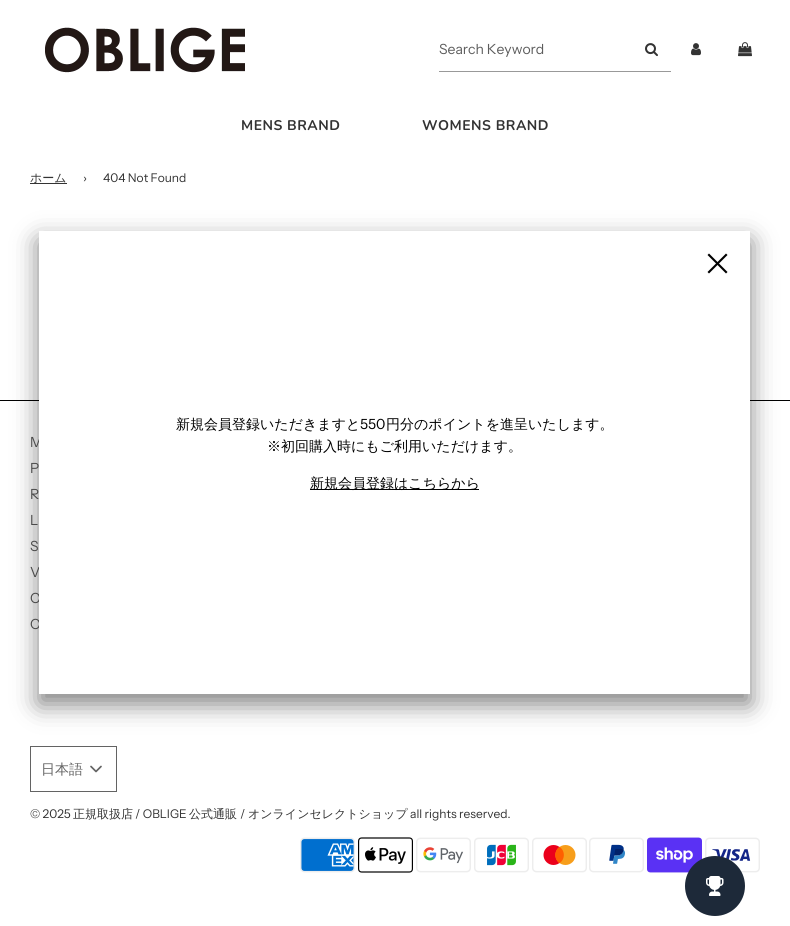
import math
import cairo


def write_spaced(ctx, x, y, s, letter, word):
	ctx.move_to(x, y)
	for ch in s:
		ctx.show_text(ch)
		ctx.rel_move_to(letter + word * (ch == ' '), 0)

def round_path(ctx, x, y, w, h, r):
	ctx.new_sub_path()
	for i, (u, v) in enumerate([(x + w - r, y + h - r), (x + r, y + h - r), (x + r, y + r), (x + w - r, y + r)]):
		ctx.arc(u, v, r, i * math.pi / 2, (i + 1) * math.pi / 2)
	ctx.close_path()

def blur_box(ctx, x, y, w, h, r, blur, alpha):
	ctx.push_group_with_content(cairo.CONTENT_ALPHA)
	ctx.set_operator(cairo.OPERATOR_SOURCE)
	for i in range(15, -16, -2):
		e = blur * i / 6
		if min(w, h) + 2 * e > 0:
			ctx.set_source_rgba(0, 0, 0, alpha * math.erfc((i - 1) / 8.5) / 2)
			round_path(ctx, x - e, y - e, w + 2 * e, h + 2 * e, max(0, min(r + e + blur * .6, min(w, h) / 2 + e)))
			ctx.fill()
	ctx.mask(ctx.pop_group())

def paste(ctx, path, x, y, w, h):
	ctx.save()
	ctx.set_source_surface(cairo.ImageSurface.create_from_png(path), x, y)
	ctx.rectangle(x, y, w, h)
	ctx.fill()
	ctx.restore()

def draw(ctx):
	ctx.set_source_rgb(1, 1, 1)
	ctx.paint()
	paste(ctx, 'media/1.png', 45, 27, 200, 46)
	ctx.set_source_rgb(0.6, 0.6, 0.6)
	ctx.rectangle(439, 71, 232, 1)
	ctx.fill()
	ctx.select_font_face('Instrument Sans')
	ctx.set_font_size(14)
	ctx.set_source_rgb(0.361, 0.361, 0.361)
	ctx.move_to(439, 54)
	ctx.show_text('Search Keyword')
	paste(ctx, 'media/2.png', 645, 43, 13, 14)
	paste(ctx, 'media/3.png', 691, 43, 10, 13)
	paste(ctx, 'media/4.png', 738, 42, 14, 15)
	ctx.select_font_face('Nunito', cairo.FONT_SLANT_NORMAL, cairo.FONT_WEIGHT_BOLD)
	ctx.set_source_rgb(0.2, 0.2, 0.2)
	write_spaced(ctx, 241, 130, 'MENS BRAND', 0.5, 0)
	write_spaced(ctx, 422, 130, 'WOMENS BRAND', 0.5, 0)
	ctx.rectangle(30, 183, 37, 1)
	ctx.fill()
	ctx.select_font_face('WenQuanYi Zen Hei Medium')
	ctx.set_font_size(12)
	ctx.move_to(30, 182)
	ctx.show_text('ホーム')
	ctx.select_font_face('Instrument Sans')
	ctx.move_to(83, 182)
	ctx.show_text('›')
	ctx.move_to(103, 182)
	ctx.show_text('404 Not Found')
	ctx.set_source_rgb(0, 0, 0)
	ctx.rectangle(0, 400, 790, 1)
	ctx.fill()
	ctx.set_source_rgb(0, 0, 0)
	blur_box(ctx, 39, 241, 711, 463, 0, 12.5, 0.5)
	ctx.set_font_size(14)
	ctx.set_source_rgb(0.29, 0.29, 0.29)
	for x, y, s in [
		(30, 447, 'M'),
		(30, 577, 'V'),
		(30, 603, 'C'),
		(30, 629, 'C'),
	]:
		ctx.move_to(x, y)
		ctx.show_text(s)
	ctx.set_source_rgb(1, 1, 1)
	ctx.rectangle(39, 231, 711, 463)
	ctx.fill()
	ctx.set_source_rgb(0, 0, 0)
	ctx.new_path()
	ctx.move_to(726, 253.5)
	ctx.line_to(727.5, 255)
	ctx.line_to(709, 273.5)
	ctx.line_to(707.5, 272)
	ctx.close_path()
	ctx.fill()
	ctx.new_path()
	ctx.move_to(707.5, 255)
	ctx.line_to(709, 253.5)
	ctx.line_to(727.5, 272)
	ctx.line_to(726, 273.5)
	ctx.close_path()
	ctx.fill()
	ctx.select_font_face('WenQuanYi Zen Hei Medium')
	ctx.move_to(176, 429)
	ctx.show_text('新規会員登録いただきますと')
	ctx.select_font_face('Instrument Sans')
	ctx.move_to(360, 429)
	ctx.show_text('550')
	ctx.select_font_face('WenQuanYi Zen Hei Medium')
	ctx.move_to(386, 429)
	ctx.show_text('円分のポイントを進呈いたします。')
	ctx.move_to(267, 451)
	ctx.show_text('※初回購入時にもご利用いただけます。')
	ctx.rectangle(310, 489, 169, 1)
	ctx.fill()
	ctx.move_to(310, 488)
	ctx.show_text('新規会員登録はこちらから')
	ctx.select_font_face('Instrument Sans')
	ctx.set_source_rgb(0.29, 0.29, 0.29)
	for x, y, s in [
		(30, 473, 'P'),
		(30, 499, 'R'),
		(30, 525, 'L'),
		(30, 551, 'S'),
	]:
		ctx.move_to(x, y)
		ctx.show_text(s)
	ctx.rectangle(30.5, 746.5, 86, 45)
	ctx.set_source_rgb(0.388, 0.388, 0.388)
	ctx.set_line_width(1)
	ctx.stroke()
	ctx.select_font_face('WenQuanYi Zen Hei Medium')
	ctx.move_to(41, 774)
	ctx.show_text('日本語')
	ctx.new_path()
	ctx.move_to(91, 766.5)
	ctx.line_to(96, 771.5)
	ctx.line_to(101, 766.5)
	ctx.set_line_width(1.7)
	ctx.set_line_cap(cairo.LINE_CAP_ROUND)
	ctx.set_line_join(cairo.LINE_JOIN_ROUND)
	ctx.stroke()
	ctx.select_font_face('Instrument Sans')
	ctx.set_font_size(12)
	ctx.set_source_rgb(0.2, 0.2, 0.2)
	ctx.move_to(30, 818)
	ctx.show_text('© 2025')
	ctx.select_font_face('WenQuanYi Zen Hei Medium')
	ctx.move_to(73, 818)
	ctx.show_text('正規取扱店')
	ctx.select_font_face('Instrument Sans')
	ctx.move_to(135, 818)
	ctx.show_text('/ OBLIGE')
	ctx.select_font_face('WenQuanYi Zen Hei Medium')
	ctx.move_to(189, 818)
	ctx.show_text('公式通販')
	ctx.select_font_face('Instrument Sans')
	ctx.move_to(240, 818)
	ctx.show_text('/')
	ctx.select_font_face('WenQuanYi Zen Hei Medium')
	ctx.move_to(248, 818)
	ctx.show_text('オンラインセレクトショップ')
	ctx.select_font_face('Instrument Sans')
	ctx.move_to(410, 818)
	ctx.show_text('all rights reserved.')
	paste(ctx, 'media/5.png', 300, 837, 55, 36)
	paste(ctx, 'media/6.png', 358, 837, 55, 36)
	paste(ctx, 'media/7.png', 416, 837, 55, 36)
	paste(ctx, 'media/8.png', 474, 837, 55, 36)
	paste(ctx, 'media/9.png', 532, 837, 55, 36)
	paste(ctx, 'media/10.png', 589, 837, 55, 36)
	paste(ctx, 'media/11.png', 647, 837, 55, 36)
	paste(ctx, 'media/12.png', 705, 837, 55, 36)
	ctx.set_source_rgb(0.114, 0.161, 0.224)
	ctx.arc(715, 886, 30, 0, 2 * math.pi)
	ctx.fill()
	paste(ctx, 'media/13.png', 706, 876, 18, 20)


surface = cairo.ImageSurface(cairo.FORMAT_RGB24, 790, 926)
ctx = cairo.Context(surface)
options = cairo.FontOptions()
options.set_hint_metrics(cairo.HINT_METRICS_OFF)
options.set_hint_style(cairo.HINT_STYLE_NONE)
ctx.set_font_options(options)
ctx.set_miter_limit(4)
draw(ctx)
surface.write_to_png('image.png')
